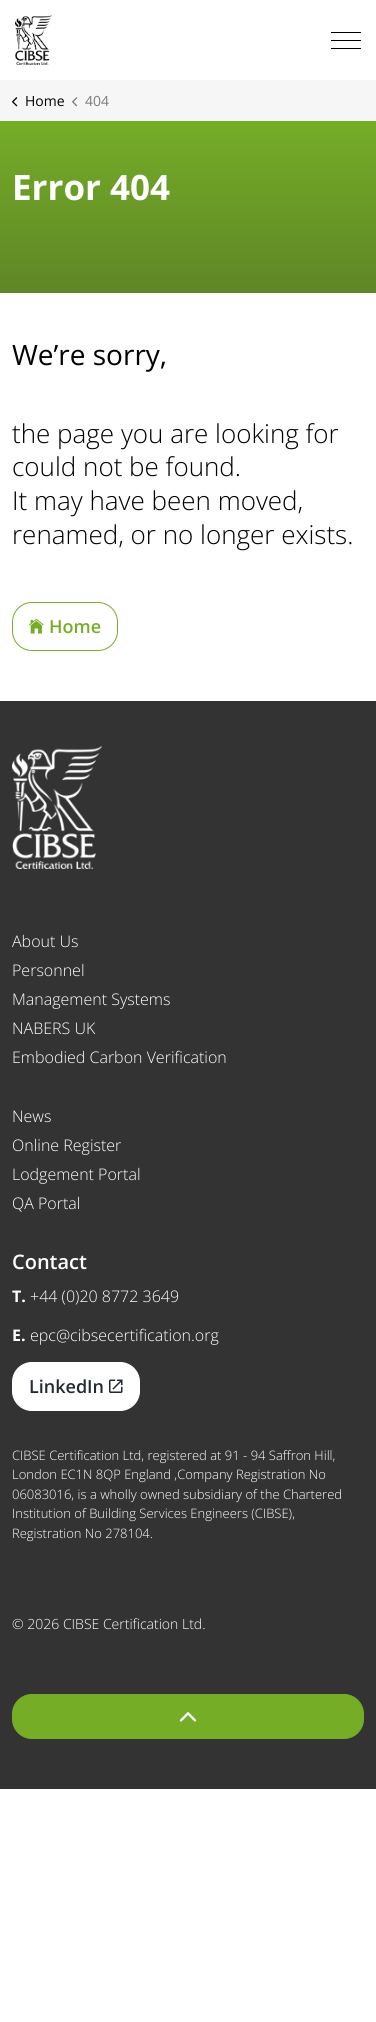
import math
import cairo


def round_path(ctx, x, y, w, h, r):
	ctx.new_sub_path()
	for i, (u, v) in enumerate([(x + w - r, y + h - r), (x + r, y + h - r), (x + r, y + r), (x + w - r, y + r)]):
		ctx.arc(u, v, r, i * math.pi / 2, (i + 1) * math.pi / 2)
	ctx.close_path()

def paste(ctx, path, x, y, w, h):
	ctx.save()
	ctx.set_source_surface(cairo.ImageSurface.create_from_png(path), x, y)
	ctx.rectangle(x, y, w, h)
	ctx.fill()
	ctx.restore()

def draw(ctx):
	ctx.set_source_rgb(1, 1, 1)
	ctx.paint()
	paste(ctx, 'media/1.png', 15, 15, 37, 50)
	ctx.set_source_rgb(0, 0, 0)
	ctx.rectangle(331, 40, 30, 1)
	ctx.rectangle(331, 32, 30, 1)
	ctx.rectangle(331, 48, 30, 1)
	ctx.fill()
	ctx.set_source_rgb(0.961, 0.961, 0.961)
	ctx.rectangle(0, 80, 376, 41)
	ctx.fill()
	paste(ctx, 'media/2.png', 12, 97, 6, 10)
	ctx.select_font_face('Open Sans')
	ctx.set_font_size(14)
	ctx.set_source_rgb(0, 0, 0)
	ctx.move_to(25, 106)
	ctx.show_text('Home')
	paste(ctx, 'media/3.png', 72, 97, 6, 10)
	ctx.set_source_rgb(0.482, 0.482, 0.482)
	ctx.move_to(85, 106)
	ctx.show_text('404')
	gradient = cairo.LinearGradient(188, 121, 188, 293)
	gradient.add_color_stop_rgba(0, 0.459, 0.678, 0.153, 1)
	gradient.add_color_stop_rgba(1, 0.369, 0.525, 0.149, 1)
	ctx.set_source(gradient)
	ctx.rectangle(0, 121, 376, 172)
	ctx.fill()
	ctx.select_font_face('Open Sans', cairo.FONT_SLANT_NORMAL, cairo.FONT_WEIGHT_BOLD)
	ctx.set_font_size(35)
	ctx.set_source_rgb(1, 1, 1)
	ctx.move_to(12, 200)
	ctx.show_text('Error 404')
	ctx.select_font_face('Open Sans')
	ctx.set_font_size(28)
	ctx.set_source_rgb(0, 0, 0)
	ctx.move_to(12, 365)
	ctx.show_text('We’re sorry,')
	ctx.select_font_face('Open Sans Light')
	ctx.set_font_size(26)
	for x, y, s in [
		(12, 443, 'the page you are looking for'),
		(12, 476, 'could not be found.'),
		(12, 510, 'It may have been moved,'),
		(12, 544, 'renamed, or no longer exists.'),
	]:
		ctx.move_to(x, y)
		ctx.show_text(s)
	round_path(ctx, 12.5, 602.5, 105, 48, 19.5)
	ctx.set_source_rgb(0.459, 0.678, 0.153)
	ctx.set_line_width(1)
	ctx.stroke()
	paste(ctx, 'media/4.png', 29, 619, 15, 15)
	ctx.select_font_face('Open Sans SemiBold')
	ctx.set_font_size(18)
	ctx.move_to(49, 633)
	ctx.show_text('Home')
	ctx.set_source_rgb(0.2, 0.2, 0.2)
	ctx.rectangle(0, 701, 376, 1088)
	ctx.fill()
	paste(ctx, 'media/5.png', 12, 746, 90, 123)
	ctx.select_font_face('Open Sans Light')
	ctx.set_font_size(16)
	ctx.set_source_rgb(1, 1, 1)
	for x, y, s in [
		(12, 947, 'About Us'),
		(12, 976, 'Personnel'),
		(12, 1005, 'Management Systems'),
		(12, 1034, 'NABERS UK'),
		(12, 1063, 'Embodied Carbon Verification'),
		(12, 1122, 'News'),
		(12, 1151, 'Online Register'),
		(12, 1180, 'Lodgement Portal'),
		(12, 1209, 'QA Portal'),
	]:
		ctx.move_to(x, y)
		ctx.show_text(s)
	ctx.select_font_face('Open Sans SemiBold')
	ctx.set_font_size(20)
	ctx.move_to(12, 1269)
	ctx.show_text('Contact')
	ctx.select_font_face('Open Sans', cairo.FONT_SLANT_NORMAL, cairo.FONT_WEIGHT_BOLD)
	ctx.set_font_size(16)
	ctx.move_to(12, 1302)
	ctx.show_text('T.')
	ctx.select_font_face('Open Sans Light')
	ctx.move_to(30, 1302)
	ctx.show_text('+44 (0)20 8772 3649')
	ctx.select_font_face('Open Sans', cairo.FONT_SLANT_NORMAL, cairo.FONT_WEIGHT_BOLD)
	ctx.move_to(12, 1341)
	ctx.show_text('E.')
	ctx.select_font_face('Open Sans Light')
	ctx.move_to(30, 1341)
	ctx.show_text('epc@cibsecertification.org')
	round_path(ctx, 12.5, 1362.5, 127, 48, 19.5)
	ctx.fill_preserve()
	ctx.stroke()
	ctx.select_font_face('Open Sans SemiBold')
	ctx.set_font_size(18)
	ctx.set_source_rgb(0.133, 0.161, 0.212)
	ctx.move_to(29, 1393)
	ctx.show_text('LinkedIn')
	paste(ctx, 'media/6.png', 109, 1379, 14, 14)
	ctx.select_font_face('Open Sans Light')
	ctx.set_font_size(13)
	ctx.set_source_rgb(1, 1, 1)
	for x, y, s in [
		(12, 1460, 'CIBSE Certification Ltd, registered at 91 - 94 Saffron Hill,'),
		(12, 1479, 'London EC1N 8QP England ,Company Registration No'),
		(12, 1499, '06083016, is a wholly owned subsidiary of the Chartered'),
		(12, 1518, 'Institution of Building Services Engineers (CIBSE),'),
		(12, 1538, 'Registration No 278104.'),
	]:
		ctx.move_to(x, y)
		ctx.show_text(s)
	ctx.set_font_size(14)
	ctx.move_to(12, 1629)
	ctx.show_text('© 2026 CIBSE Certification Ltd.')
	ctx.set_source_rgb(0.459, 0.678, 0.153)
	round_path(ctx, 12.5, 1694.5, 351, 44, 19.5)
	ctx.fill_preserve()
	ctx.stroke()
	paste(ctx, 'media/7.png', 179, 1712, 18, 10)


surface = cairo.ImageSurface(cairo.FORMAT_RGB24, 376, 2022)
ctx = cairo.Context(surface)
options = cairo.FontOptions()
options.set_hint_metrics(cairo.HINT_METRICS_OFF)
options.set_hint_style(cairo.HINT_STYLE_NONE)
ctx.set_font_options(options)
ctx.set_miter_limit(4)
draw(ctx)
surface.write_to_png('image.png')
